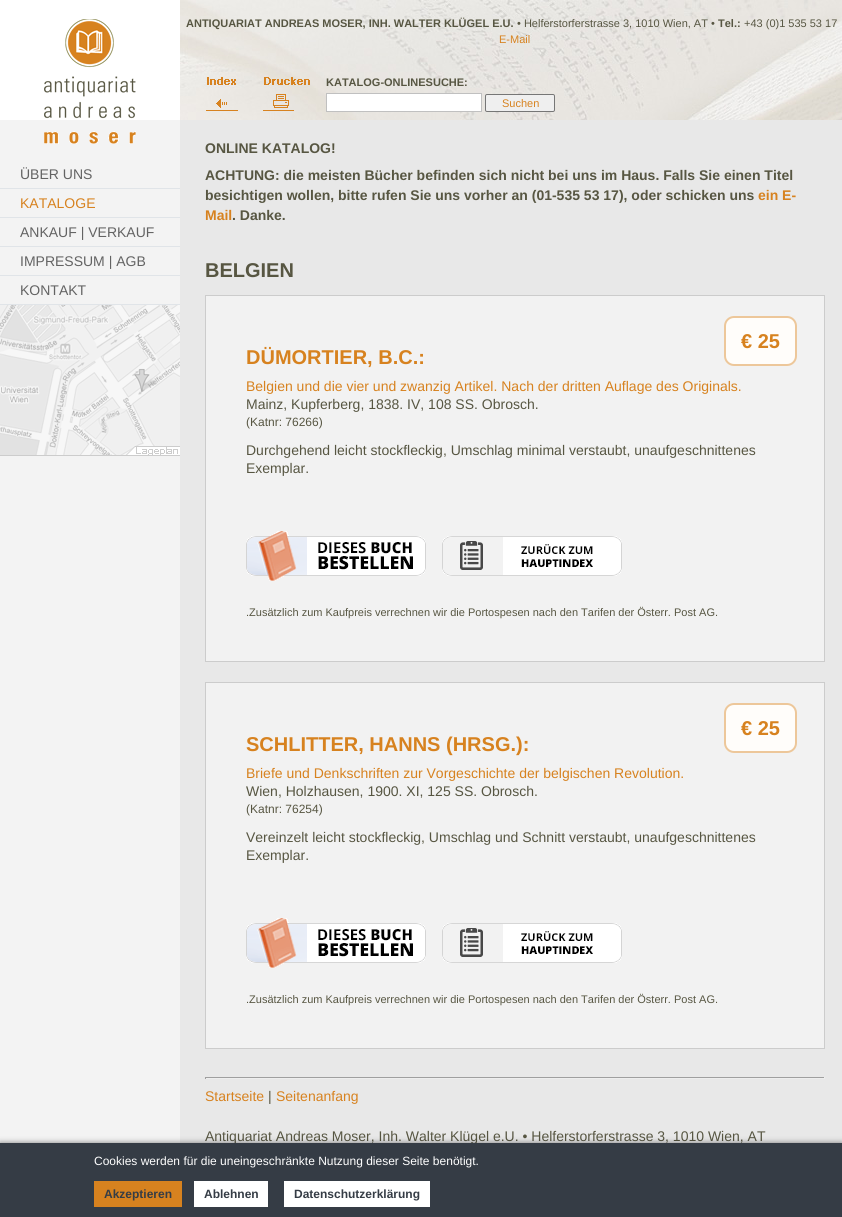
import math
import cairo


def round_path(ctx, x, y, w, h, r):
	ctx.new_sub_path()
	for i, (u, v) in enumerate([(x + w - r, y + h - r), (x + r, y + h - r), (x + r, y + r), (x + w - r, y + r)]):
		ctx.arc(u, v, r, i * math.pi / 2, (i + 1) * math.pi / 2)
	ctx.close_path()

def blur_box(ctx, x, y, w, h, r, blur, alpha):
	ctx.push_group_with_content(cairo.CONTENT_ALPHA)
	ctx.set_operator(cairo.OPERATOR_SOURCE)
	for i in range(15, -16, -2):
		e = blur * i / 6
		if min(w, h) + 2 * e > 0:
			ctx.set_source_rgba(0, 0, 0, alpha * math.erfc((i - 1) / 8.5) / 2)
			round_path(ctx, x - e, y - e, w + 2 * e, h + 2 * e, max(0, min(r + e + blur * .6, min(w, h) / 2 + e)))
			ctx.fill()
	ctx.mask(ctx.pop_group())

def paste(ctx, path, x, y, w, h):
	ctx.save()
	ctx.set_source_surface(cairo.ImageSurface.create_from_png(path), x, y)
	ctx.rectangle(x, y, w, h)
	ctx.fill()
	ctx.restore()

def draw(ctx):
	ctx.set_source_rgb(1, 1, 1)
	ctx.paint()
	paste(ctx, 'media/1.png', 0, 120, 842, 1023)
	paste(ctx, 'media/2.png', 180, 0, 662, 120)
	ctx.select_font_face('Liberation Sans', cairo.FONT_SLANT_NORMAL, cairo.FONT_WEIGHT_BOLD)
	ctx.set_font_size(11)
	ctx.set_source_rgb(0.341, 0.337, 0.259)
	ctx.move_to(186, 27)
	ctx.show_text('ANTIQUARIAT ANDREAS MOSER, INH. WALTER KLÜGEL E.U.')
	ctx.select_font_face('Liberation Sans')
	ctx.move_to(517, 27)
	ctx.show_text('• Helferstorferstrasse 3, 1010 Wien, AT •')
	ctx.select_font_face('Liberation Sans', cairo.FONT_SLANT_NORMAL, cairo.FONT_WEIGHT_BOLD)
	ctx.move_to(718, 27)
	ctx.show_text('Tel.:')
	ctx.select_font_face('Liberation Sans')
	ctx.move_to(744, 27)
	ctx.show_text('+43 (0)1 535 53 17')
	ctx.set_source_rgb(0.843, 0.51, 0.122)
	ctx.move_to(499, 43)
	ctx.show_text('E-Mail')
	ctx.set_source_rgb(0.878, 0.894, 0.91)
	ctx.rectangle(0, 188, 180, 1)
	ctx.fill()
	ctx.set_font_size(14)
	ctx.set_source_rgb(0.388, 0.388, 0.388)
	ctx.move_to(20, 179)
	ctx.show_text('ÜBER UNS')
	ctx.set_source_rgb(0.878, 0.894, 0.91)
	ctx.rectangle(0, 217, 180, 1)
	ctx.fill()
	ctx.set_source_rgb(0.843, 0.51, 0.122)
	ctx.move_to(20, 208)
	ctx.show_text('KATALOGE')
	ctx.set_source_rgb(0.878, 0.894, 0.91)
	ctx.rectangle(0, 246, 180, 1)
	ctx.fill()
	ctx.set_source_rgb(0.388, 0.388, 0.388)
	ctx.move_to(20, 237)
	ctx.show_text('ANKAUF | VERKAUF')
	ctx.set_source_rgb(0.878, 0.894, 0.91)
	ctx.rectangle(0, 275, 180, 1)
	ctx.fill()
	ctx.set_source_rgb(0.388, 0.388, 0.388)
	ctx.move_to(20, 266)
	ctx.show_text('IMPRESSUM | AGB')
	ctx.set_source_rgb(0.878, 0.894, 0.91)
	ctx.rectangle(0, 304, 180, 1)
	ctx.fill()
	ctx.set_source_rgb(0.388, 0.388, 0.388)
	ctx.move_to(20, 295)
	ctx.show_text('KONTAKT')
	paste(ctx, 'media/3.png', 0, 305, 180, 151)
	ctx.select_font_face('Liberation Sans', cairo.FONT_SLANT_NORMAL, cairo.FONT_WEIGHT_BOLD)
	ctx.set_source_rgb(0.341, 0.337, 0.259)
	for x, y, s in [
		(205, 153, 'ONLINE KATALOG!'),
		(205, 180, 'ACHTUNG: die meisten Bücher befinden sich nicht bei uns im Haus. Falls Sie einen Titel'),
		(205, 200, 'besichtigen wollen, bitte rufen Sie uns vorher an (01-535 53 17), oder schicken uns'),
	]:
		ctx.move_to(x, y)
		ctx.show_text(s)
	ctx.set_source_rgb(0.843, 0.51, 0.122)
	ctx.move_to(758, 200)
	ctx.show_text('ein E-')
	ctx.move_to(205, 220)
	ctx.show_text('Mail')
	ctx.set_source_rgb(0.341, 0.337, 0.259)
	ctx.move_to(232, 220)
	ctx.show_text('. Danke.')
	ctx.set_font_size(20)
	ctx.move_to(205, 277)
	ctx.show_text('BELGIEN')
	ctx.set_source_rgb(0.949, 0.949, 0.949)
	ctx.rectangle(205.5, 295.5, 619, 366)
	ctx.fill_preserve()
	ctx.set_source_rgb(0.8, 0.8, 0.8)
	ctx.set_line_width(1)
	ctx.stroke()
	ctx.set_source_rgb(1, 0.992, 0.98)
	round_path(ctx, 725, 317, 71, 48, 9)
	ctx.fill_preserve()
	ctx.set_source_rgb(0.929, 0.78, 0.604)
	ctx.set_line_width(2)
	ctx.stroke()
	ctx.set_source_rgb(0.843, 0.51, 0.122)
	ctx.move_to(741, 348)
	ctx.show_text('€ 25')
	ctx.move_to(246, 364)
	ctx.show_text('DÜMORTIER, B.C.:')
	ctx.select_font_face('Liberation Sans')
	ctx.set_font_size(14)
	ctx.move_to(246, 391)
	ctx.show_text('Belgien und die vier und zwanzig Artikel. Nach der dritten Auflage des Originals.')
	ctx.set_source_rgb(0.341, 0.337, 0.259)
	ctx.move_to(246, 409)
	ctx.show_text('Mainz, Kupferberg, 1838. IV, 108 SS. Obrosch.')
	ctx.set_font_size(12)
	ctx.move_to(246, 426)
	ctx.show_text('(Katnr: 76266)')
	ctx.set_font_size(14)
	ctx.move_to(246, 455)
	ctx.show_text('Durchgehend leicht stockfleckig, Umschlag minimal verstaubt, unaufgeschnittenes')
	ctx.move_to(246, 473)
	ctx.show_text('Exemplar.')
	paste(ctx, 'media/4.png', 246, 531, 180, 50)
	paste(ctx, 'media/5.png', 442, 536, 180, 40)
	ctx.set_font_size(11)
	ctx.move_to(246, 616)
	ctx.show_text('.Zusätzlich zum Kaufpreis verrechnen wir die Portospesen nach den Tarifen der Österr. Post AG.')
	ctx.set_source_rgb(0.949, 0.949, 0.949)
	ctx.rectangle(205.5, 682.5, 619, 366)
	ctx.fill_preserve()
	ctx.set_source_rgb(0.8, 0.8, 0.8)
	ctx.set_line_width(1)
	ctx.stroke()
	ctx.set_source_rgb(1, 0.992, 0.98)
	round_path(ctx, 725, 704, 71, 48, 9)
	ctx.fill_preserve()
	ctx.set_source_rgb(0.929, 0.78, 0.604)
	ctx.set_line_width(2)
	ctx.stroke()
	ctx.select_font_face('Liberation Sans', cairo.FONT_SLANT_NORMAL, cairo.FONT_WEIGHT_BOLD)
	ctx.set_font_size(20)
	ctx.set_source_rgb(0.843, 0.51, 0.122)
	ctx.move_to(741, 735)
	ctx.show_text('€ 25')
	ctx.move_to(246, 751)
	ctx.show_text('SCHLITTER, HANNS (HRSG.):')
	ctx.select_font_face('Liberation Sans')
	ctx.set_font_size(14)
	ctx.move_to(246, 778)
	ctx.show_text('Briefe und Denkschriften zur Vorgeschichte der belgischen Revolution.')
	ctx.set_source_rgb(0.341, 0.337, 0.259)
	ctx.move_to(246, 796)
	ctx.show_text('Wien, Holzhausen, 1900. XI, 125 SS. Obrosch.')
	ctx.set_font_size(12)
	ctx.move_to(246, 813)
	ctx.show_text('(Katnr: 76254)')
	ctx.set_font_size(14)
	ctx.move_to(246, 842)
	ctx.show_text('Vereinzelt leicht stockfleckig, Umschlag und Schnitt verstaubt, unaufgeschnittenes')
	ctx.move_to(246, 860)
	ctx.show_text('Exemplar.')
	paste(ctx, 'media/4.png', 246, 918, 180, 50)
	paste(ctx, 'media/5.png', 442, 923, 180, 40)
	ctx.set_font_size(11)
	ctx.move_to(246, 1003)
	ctx.show_text('.Zusätzlich zum Kaufpreis verrechnen wir die Portospesen nach den Tarifen der Österr. Post AG.')
	ctx.set_source_rgb(0.624, 0.624, 0.624)
	ctx.rectangle(205, 1077, 620, 1)
	ctx.fill()
	ctx.set_source_rgb(0.933, 0.933, 0.933)
	ctx.rectangle(824, 1077, 1, 2)
	ctx.rectangle(205, 1078, 620, 1)
	ctx.fill()
	ctx.set_source_rgb(0.624, 0.624, 0.624)
	ctx.rectangle(205, 1077, 1, 2)
	ctx.fill()
	ctx.set_font_size(14)
	ctx.set_source_rgb(0.843, 0.51, 0.122)
	ctx.move_to(205, 1101)
	ctx.show_text('Startseite')
	ctx.set_source_rgb(0.341, 0.337, 0.259)
	ctx.move_to(268, 1101)
	ctx.show_text('|')
	ctx.set_source_rgb(0.843, 0.51, 0.122)
	ctx.move_to(276, 1101)
	ctx.show_text('Seitenanfang')
	ctx.set_source_rgb(0.341, 0.337, 0.259)
	ctx.move_to(205, 1141)
	ctx.show_text('Antiquariat Andreas Moser, Inh. Walter Klügel e.U. • Helferstorferstrasse 3, 1010 Wien, AT')
	paste(ctx, 'media/6.png', 44, 19, 92, 125)
	paste(ctx, 'media/7.png', 206, 77, 32, 34)
	paste(ctx, 'media/8.png', 263, 77, 47, 34)
	ctx.select_font_face('Liberation Sans', cairo.FONT_SLANT_NORMAL, cairo.FONT_WEIGHT_BOLD)
	ctx.set_font_size(11)
	ctx.move_to(326, 86)
	ctx.show_text('KATALOG-ONLINESUCHE:')
	ctx.set_source_rgb(1, 1, 1)
	ctx.rectangle(326.5, 93.5, 155, 18)
	ctx.fill_preserve()
	ctx.set_source_rgb(0.753, 0.753, 0.753)
	ctx.set_line_width(1)
	ctx.stroke()
	ctx.set_source_rgb(0.937, 0.937, 0.937)
	round_path(ctx, 485.5, 94.5, 69, 17, 1.5)
	ctx.fill_preserve()
	ctx.set_source_rgb(0.463, 0.463, 0.463)
	ctx.stroke()
	ctx.select_font_face('Liberation Sans')
	ctx.set_source_rgb(0.843, 0.51, 0.122)
	ctx.move_to(502, 107)
	ctx.show_text('Suchen')
	ctx.set_source_rgb(0, 0, 0)
	blur_box(ctx, 0, 1143, 842, 74, 0, 3, 0.5)
	ctx.set_source_rgb(0.208, 0.235, 0.271)
	ctx.rectangle(0, 1143, 842, 74)
	ctx.fill()
	ctx.set_font_size(12)
	ctx.set_source_rgb(1, 1, 1)
	ctx.move_to(94, 1165)
	ctx.show_text('Cookies werden für die uneingeschränkte Nutzung dieser Seite benötigt.')
	ctx.set_source_rgb(0.843, 0.51, 0.122)
	ctx.rectangle(94, 1181, 88, 26)
	ctx.fill()
	ctx.select_font_face('Liberation Sans', cairo.FONT_SLANT_NORMAL, cairo.FONT_WEIGHT_BOLD)
	ctx.set_source_rgb(0.208, 0.235, 0.271)
	ctx.move_to(104, 1198)
	ctx.show_text('Akzeptieren')
	ctx.set_source_rgb(1, 1, 1)
	ctx.rectangle(194, 1181, 74, 26)
	ctx.fill()
	ctx.set_source_rgb(0.208, 0.235, 0.271)
	ctx.move_to(204, 1198)
	ctx.show_text('Ablehnen')
	ctx.set_source_rgb(1, 1, 1)
	ctx.rectangle(284, 1181, 146, 26)
	ctx.fill()
	ctx.set_source_rgb(0.208, 0.235, 0.271)
	ctx.move_to(294, 1198)
	ctx.show_text('Datenschutzerklärung')


surface = cairo.ImageSurface(cairo.FORMAT_RGB24, 842, 1217)
ctx = cairo.Context(surface)
options = cairo.FontOptions()
options.set_hint_metrics(cairo.HINT_METRICS_OFF)
options.set_hint_style(cairo.HINT_STYLE_NONE)
ctx.set_font_options(options)
ctx.set_miter_limit(4)
draw(ctx)
surface.write_to_png('image.png')
